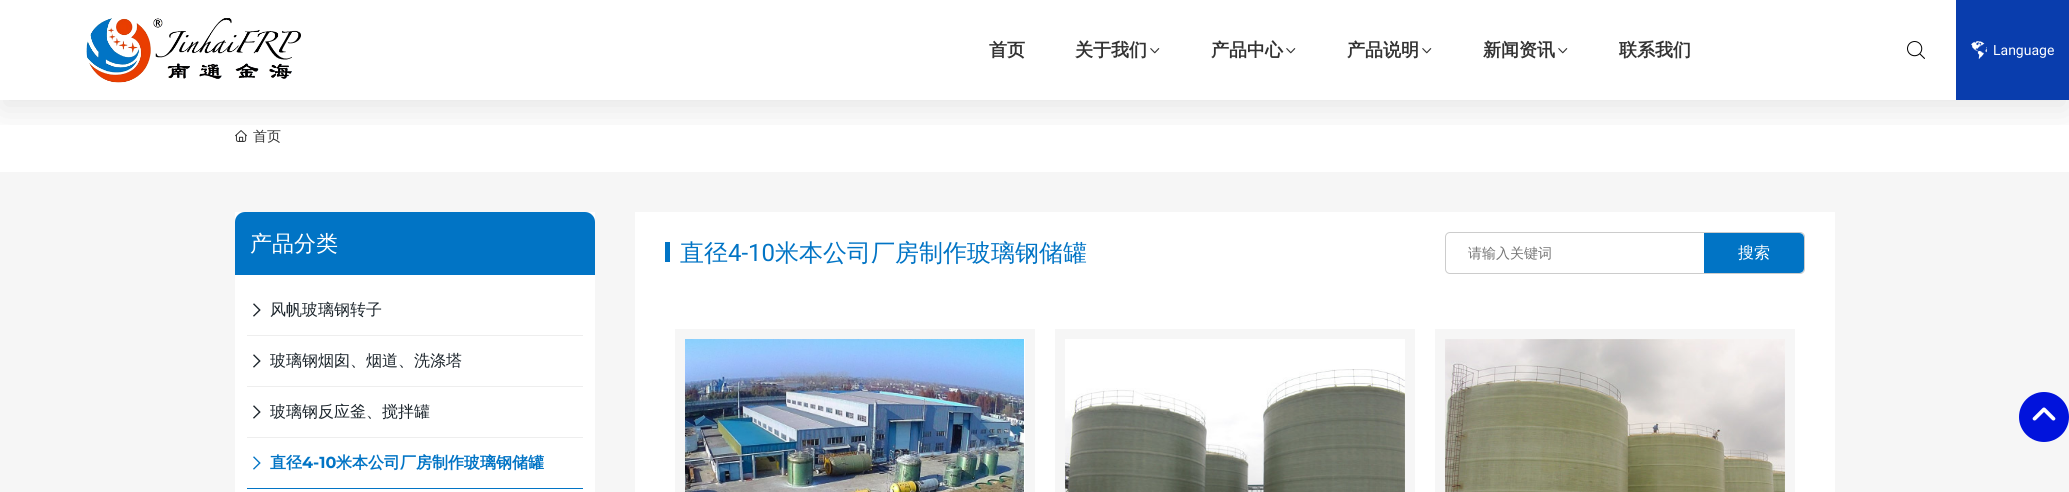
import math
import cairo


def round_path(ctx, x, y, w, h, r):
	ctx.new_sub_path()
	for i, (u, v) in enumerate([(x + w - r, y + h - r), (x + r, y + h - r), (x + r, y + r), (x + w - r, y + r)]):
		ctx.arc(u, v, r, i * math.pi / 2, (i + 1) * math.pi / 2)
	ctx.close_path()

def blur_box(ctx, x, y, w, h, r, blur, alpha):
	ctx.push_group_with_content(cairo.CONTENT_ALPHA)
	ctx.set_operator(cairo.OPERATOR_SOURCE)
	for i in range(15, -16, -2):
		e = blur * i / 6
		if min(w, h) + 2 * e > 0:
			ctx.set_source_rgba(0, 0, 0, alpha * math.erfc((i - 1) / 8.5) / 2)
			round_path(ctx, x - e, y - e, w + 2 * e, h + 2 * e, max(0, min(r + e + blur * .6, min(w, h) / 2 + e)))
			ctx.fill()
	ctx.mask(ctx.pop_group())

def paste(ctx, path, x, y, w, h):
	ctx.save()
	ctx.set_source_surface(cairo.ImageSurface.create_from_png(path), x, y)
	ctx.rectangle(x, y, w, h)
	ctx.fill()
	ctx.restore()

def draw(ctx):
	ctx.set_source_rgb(1, 1, 1)
	ctx.paint()
	paste(ctx, 'media/5.png', 235, 130, 12, 12)
	ctx.save()
	ctx.rectangle(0, 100, 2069, 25)
	ctx.clip()
	ctx.set_source_rgb(0, 0, 0)
	blur_box(ctx, 0, 10, 2069, 100, 0, 17.5, 0.1)
	ctx.restore()
	paste(ctx, 'media/1.png', 86, 18, 215, 65)
	ctx.select_font_face('WenQuanYi Zen Hei', cairo.FONT_SLANT_NORMAL, cairo.FONT_WEIGHT_BOLD)
	ctx.set_font_size(18)
	ctx.set_source_rgb(0.2, 0.2, 0.2)
	ctx.move_to(989, 56)
	ctx.show_text('首页')
	ctx.move_to(1075, 56)
	ctx.show_text('关于我们')
	paste(ctx, 'media/2.png', 1150, 48, 10, 6)
	ctx.move_to(1211, 56)
	ctx.show_text('产品中心')
	paste(ctx, 'media/2.png', 1286, 48, 10, 6)
	ctx.move_to(1347, 56)
	ctx.show_text('产品说明')
	paste(ctx, 'media/2.png', 1422, 48, 10, 6)
	ctx.move_to(1483, 56)
	ctx.show_text('新闻资讯')
	paste(ctx, 'media/2.png', 1558, 48, 10, 6)
	ctx.move_to(1619, 56)
	ctx.show_text('联系我们')
	paste(ctx, 'media/3.png', 1907, 41, 18, 18)
	ctx.set_source_rgb(0.039, 0.239, 0.678)
	ctx.rectangle(1956, 0, 113, 100)
	ctx.fill()
	paste(ctx, 'media/4.png', 1971, 41, 16, 18)
	ctx.select_font_face('Roboto')
	ctx.set_font_size(14)
	ctx.set_source_rgb(1, 1, 1)
	ctx.move_to(1993, 55)
	ctx.show_text('Language')
	ctx.select_font_face('WenQuanYi Zen Hei Medium')
	ctx.set_source_rgb(0.2, 0.2, 0.2)
	ctx.move_to(253, 141)
	ctx.show_text('首页')
	ctx.set_source_rgb(0.961, 0.961, 0.961)
	ctx.rectangle(0, 172, 2069, 320)
	ctx.fill()
	ctx.set_source_rgb(1, 1, 1)
	ctx.rectangle(235, 212, 360, 280)
	ctx.fill()
	ctx.set_source_rgb(0.004, 0.455, 0.773)
	ctx.new_path()
	ctx.move_to(245, 212)
	ctx.line_to(585, 212)
	ctx.curve_to(590.5, 212, 595, 216.5, 595, 222)
	ctx.line_to(595, 275)
	ctx.line_to(235, 275)
	ctx.line_to(235, 222)
	ctx.curve_to(235, 216.5, 239.5, 212, 245, 212)
	ctx.close_path()
	ctx.fill()
	ctx.set_font_size(22)
	ctx.set_source_rgb(1, 1, 1)
	ctx.move_to(250, 251)
	ctx.show_text('产品分类')
	ctx.set_source_rgb(0.933, 0.933, 0.933)
	ctx.rectangle(247, 335, 336, 1)
	ctx.fill()
	paste(ctx, 'media/6.png', 253, 303, 8, 14)
	ctx.set_font_size(16)
	ctx.set_source_rgb(0.106, 0.141, 0.169)
	ctx.move_to(270, 315)
	ctx.show_text('风帆玻璃钢转子')
	ctx.set_source_rgb(0.933, 0.933, 0.933)
	ctx.rectangle(247, 386, 336, 1)
	ctx.fill()
	paste(ctx, 'media/6.png', 253, 354, 8, 14)
	ctx.set_source_rgb(0.106, 0.141, 0.169)
	ctx.move_to(270, 366)
	ctx.show_text('玻璃钢烟囱、烟道、洗涤塔')
	ctx.set_source_rgb(0.933, 0.933, 0.933)
	ctx.rectangle(247, 437, 336, 1)
	ctx.fill()
	paste(ctx, 'media/6.png', 253, 405, 8, 14)
	ctx.set_source_rgb(0.106, 0.141, 0.169)
	ctx.move_to(270, 417)
	ctx.show_text('玻璃钢反应釜、搅拌罐')
	ctx.set_source_rgb(0.004, 0.455, 0.773)
	ctx.rectangle(247, 488, 336, 1)
	ctx.fill()
	paste(ctx, 'media/7.png', 253, 456, 8, 14)
	ctx.select_font_face('WenQuanYi Zen Hei', cairo.FONT_SLANT_NORMAL, cairo.FONT_WEIGHT_BOLD)
	ctx.move_to(270, 468)
	ctx.show_text('直径')
	ctx.select_font_face('Montserrat', cairo.FONT_SLANT_NORMAL, cairo.FONT_WEIGHT_BOLD)
	ctx.move_to(302, 468)
	ctx.show_text('4-10')
	ctx.select_font_face('WenQuanYi Zen Hei', cairo.FONT_SLANT_NORMAL, cairo.FONT_WEIGHT_BOLD)
	ctx.move_to(336, 468)
	ctx.show_text('米本公司厂房制作玻璃钢储罐')
	ctx.set_source_rgb(1, 1, 1)
	ctx.rectangle(635, 212, 1200, 280)
	ctx.fill()
	ctx.set_source_rgb(0.004, 0.455, 0.773)
	ctx.rectangle(665, 242, 5, 20)
	ctx.fill()
	ctx.select_font_face('WenQuanYi Zen Hei Medium')
	ctx.set_font_size(24)
	ctx.move_to(680, 261)
	ctx.show_text('直径')
	ctx.select_font_face('Roboto')
	ctx.move_to(728, 261)
	ctx.show_text('4-10')
	ctx.select_font_face('WenQuanYi Zen Hei Medium')
	ctx.move_to(775, 261)
	ctx.show_text('米本公司厂房制作玻璃钢储罐')
	round_path(ctx, 1445.5, 232.5, 359, 41, 4.5)
	ctx.set_source_rgb(0.8, 0.8, 0.8)
	ctx.set_line_width(1)
	ctx.stroke()
	ctx.set_font_size(14)
	ctx.set_source_rgb(0.459, 0.459, 0.459)
	ctx.move_to(1468, 258)
	ctx.show_text('请输入关键词')
	ctx.set_source_rgb(0.004, 0.455, 0.773)
	ctx.new_path()
	ctx.move_to(1704, 233)
	ctx.line_to(1799, 233)
	ctx.curve_to(1802, 233, 1804, 235, 1804, 238)
	ctx.line_to(1804, 268)
	ctx.curve_to(1804, 271, 1802, 273, 1799, 273)
	ctx.line_to(1704, 273)
	ctx.close_path()
	ctx.fill()
	ctx.set_font_size(16)
	ctx.set_source_rgb(1, 1, 1)
	ctx.move_to(1738, 258)
	ctx.show_text('搜索')
	ctx.set_source_rgb(0.961, 0.961, 0.961)
	ctx.rectangle(675, 329, 360, 163)
	ctx.fill()
	ctx.set_source_rgb(1, 1, 1)
	ctx.rectangle(1024, 339, 1, 153)
	ctx.fill()
	paste(ctx, 'media/8.png', 685, 339, 339, 153)
	ctx.set_source_rgb(0.961, 0.961, 0.961)
	ctx.rectangle(1055, 329, 360, 163)
	ctx.fill()
	ctx.set_source_rgb(1, 1, 1)
	ctx.rectangle(1065, 339, 340, 30)
	ctx.fill()
	paste(ctx, 'media/9.png', 1065, 369, 340, 123)
	ctx.set_source_rgb(0.961, 0.961, 0.961)
	ctx.rectangle(1435, 329, 360, 163)
	ctx.fill()
	paste(ctx, 'media/10.png', 1445, 339, 340, 153)
	ctx.set_source_rgb(0.004, 0.078, 0.863)
	ctx.arc(2044, 417, 25, 0, 2 * math.pi)
	ctx.fill()
	paste(ctx, 'media/11.png', 2032, 407, 24, 14)


surface = cairo.ImageSurface(cairo.FORMAT_RGB24, 2069, 492)
ctx = cairo.Context(surface)
options = cairo.FontOptions()
options.set_hint_metrics(cairo.HINT_METRICS_OFF)
options.set_hint_style(cairo.HINT_STYLE_NONE)
ctx.set_font_options(options)
ctx.set_miter_limit(4)
draw(ctx)
surface.write_to_png('image.png')
